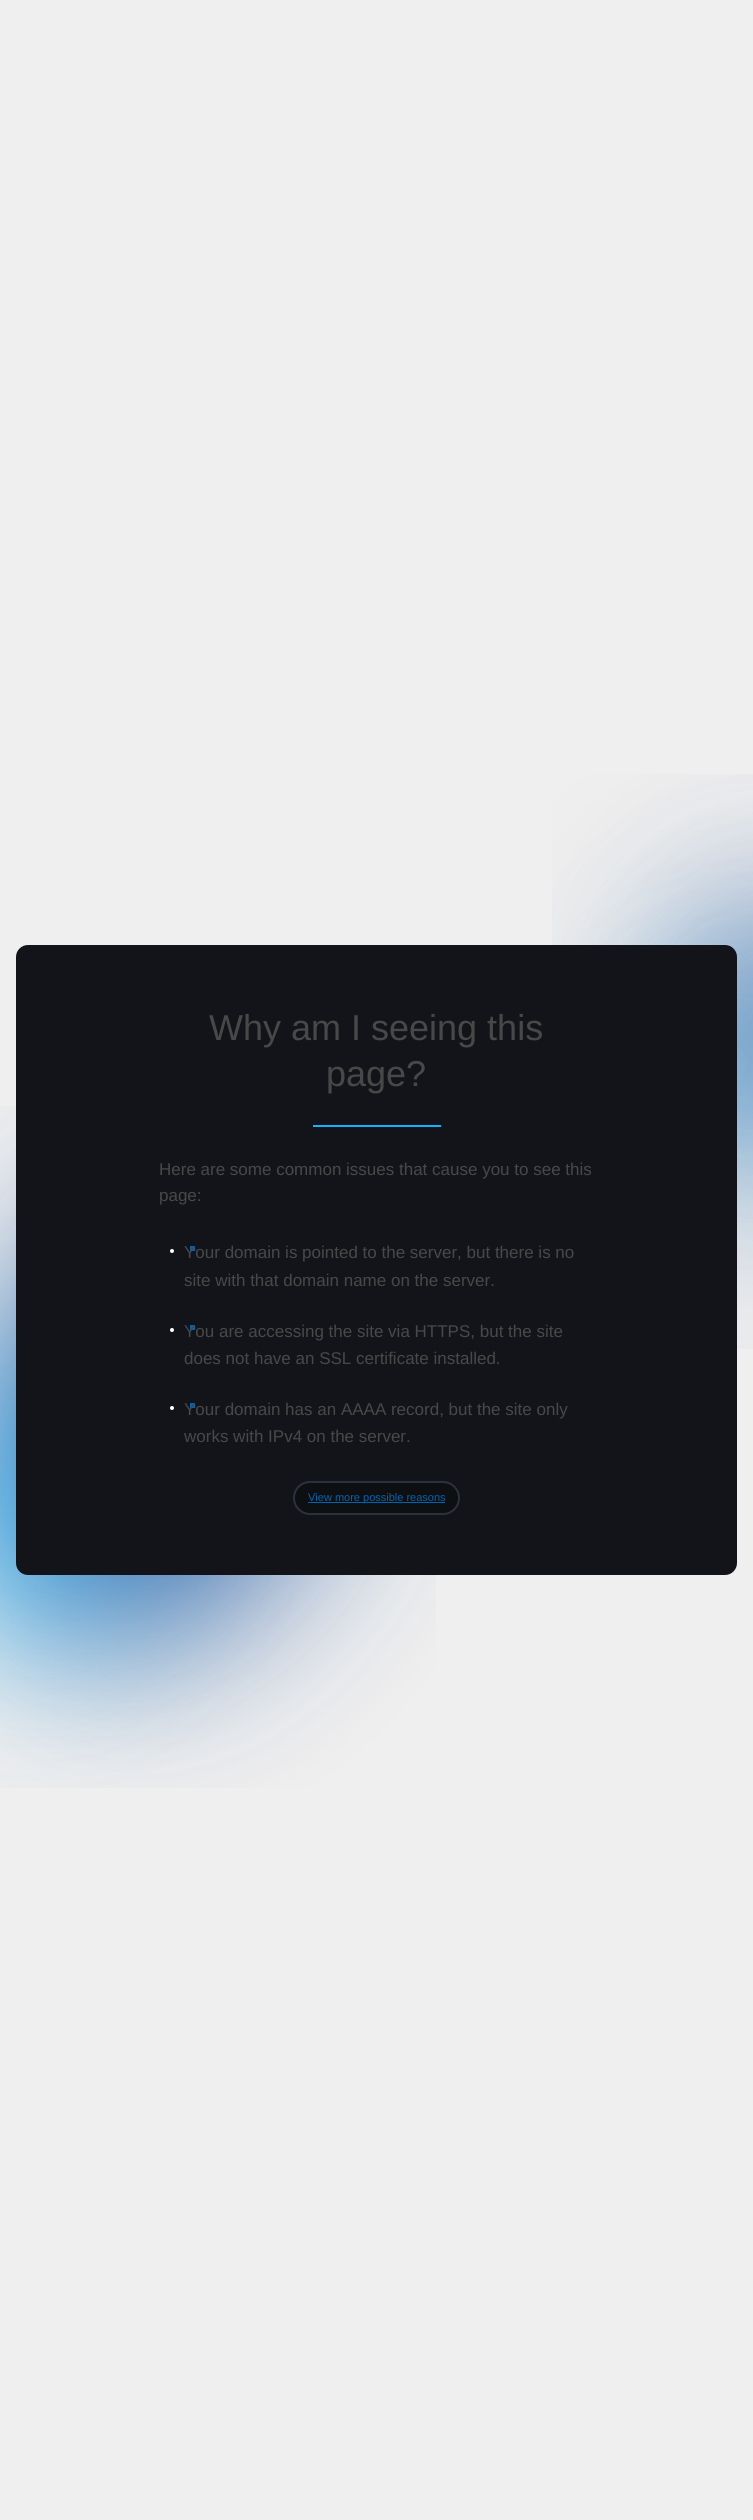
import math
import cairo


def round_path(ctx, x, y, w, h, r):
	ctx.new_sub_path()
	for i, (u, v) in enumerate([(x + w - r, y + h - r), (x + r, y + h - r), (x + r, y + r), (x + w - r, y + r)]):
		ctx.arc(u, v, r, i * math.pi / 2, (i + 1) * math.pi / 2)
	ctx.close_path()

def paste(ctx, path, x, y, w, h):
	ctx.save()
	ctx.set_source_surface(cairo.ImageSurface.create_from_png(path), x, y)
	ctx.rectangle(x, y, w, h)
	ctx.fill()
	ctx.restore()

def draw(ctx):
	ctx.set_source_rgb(0.937, 0.937, 0.937)
	ctx.paint()
	paste(ctx, 'media/1.png', 552, 774, 201, 575)
	paste(ctx, 'media/2.png', 0, 1106, 436, 682)
	ctx.set_source_rgb(0.075, 0.082, 0.102)
	round_path(ctx, 16, 945, 721, 630, 12)
	ctx.fill()
	ctx.select_font_face('Liberation Sans')
	ctx.set_font_size(36)
	ctx.set_source_rgb(0.282, 0.282, 0.282)
	ctx.move_to(209, 1040)
	ctx.show_text('Why am I seeing this')
	ctx.move_to(326, 1086)
	ctx.show_text('page?')
	ctx.set_source_rgb(0.082, 0.706, 0.988)
	ctx.rectangle(313, 1125, 128, 2)
	ctx.fill()
	ctx.set_font_size(17)
	ctx.set_source_rgb(0.282, 0.282, 0.282)
	ctx.move_to(159, 1175)
	ctx.show_text('Here are some common issues that cause you to see this')
	ctx.move_to(159, 1201)
	ctx.show_text('page:')
	ctx.set_source_rgb(0.008, 0.392, 0.69)
	ctx.rectangle(190, 1246, 5, 5)
	ctx.fill()
	ctx.set_source_rgb(1, 1, 1)
	ctx.arc(172, 1251, 2, 0, 2 * math.pi)
	ctx.fill()
	ctx.set_source_rgb(0.282, 0.282, 0.282)
	ctx.move_to(184, 1258)
	ctx.show_text('Your domain is pointed to the server, but there is no')
	ctx.move_to(184, 1286)
	ctx.show_text('site with that domain name on the server.')
	ctx.set_source_rgb(0.008, 0.392, 0.69)
	ctx.rectangle(190, 1325, 5, 5)
	ctx.fill()
	ctx.set_source_rgb(1, 1, 1)
	ctx.arc(172, 1330, 2, 0, 2 * math.pi)
	ctx.fill()
	ctx.set_source_rgb(0.282, 0.282, 0.282)
	ctx.move_to(184, 1337)
	ctx.show_text('You are accessing the site via HTTPS, but the site')
	ctx.move_to(184, 1364)
	ctx.show_text('does not have an SSL certificate installed.')
	ctx.set_source_rgb(0.008, 0.392, 0.69)
	ctx.rectangle(190, 1403, 5, 5)
	ctx.fill()
	ctx.set_source_rgb(1, 1, 1)
	ctx.arc(172, 1408, 2, 0, 2 * math.pi)
	ctx.fill()
	ctx.set_source_rgb(0.282, 0.282, 0.282)
	ctx.move_to(184, 1415)
	ctx.show_text('Your domain has an AAAA record, but the site only')
	ctx.move_to(184, 1442)
	ctx.show_text('works with IPv4 on the server.')
	ctx.set_source_rgb(0.055, 0.059, 0.078)
	round_path(ctx, 294, 1482, 165, 32, 16)
	ctx.fill_preserve()
	ctx.set_source_rgb(0.169, 0.192, 0.239)
	ctx.stroke()
	ctx.set_source_rgb(0.008, 0.392, 0.69)
	ctx.rectangle(308, 1502, 137, 1)
	ctx.fill()
	ctx.set_font_size(11)
	ctx.move_to(308, 1501)
	ctx.show_text('View more possible reasons')


surface = cairo.ImageSurface(cairo.FORMAT_RGB24, 753, 2520)
ctx = cairo.Context(surface)
options = cairo.FontOptions()
options.set_hint_metrics(cairo.HINT_METRICS_OFF)
options.set_hint_style(cairo.HINT_STYLE_NONE)
ctx.set_font_options(options)
ctx.set_miter_limit(4)
draw(ctx)
surface.write_to_png('image.png')
